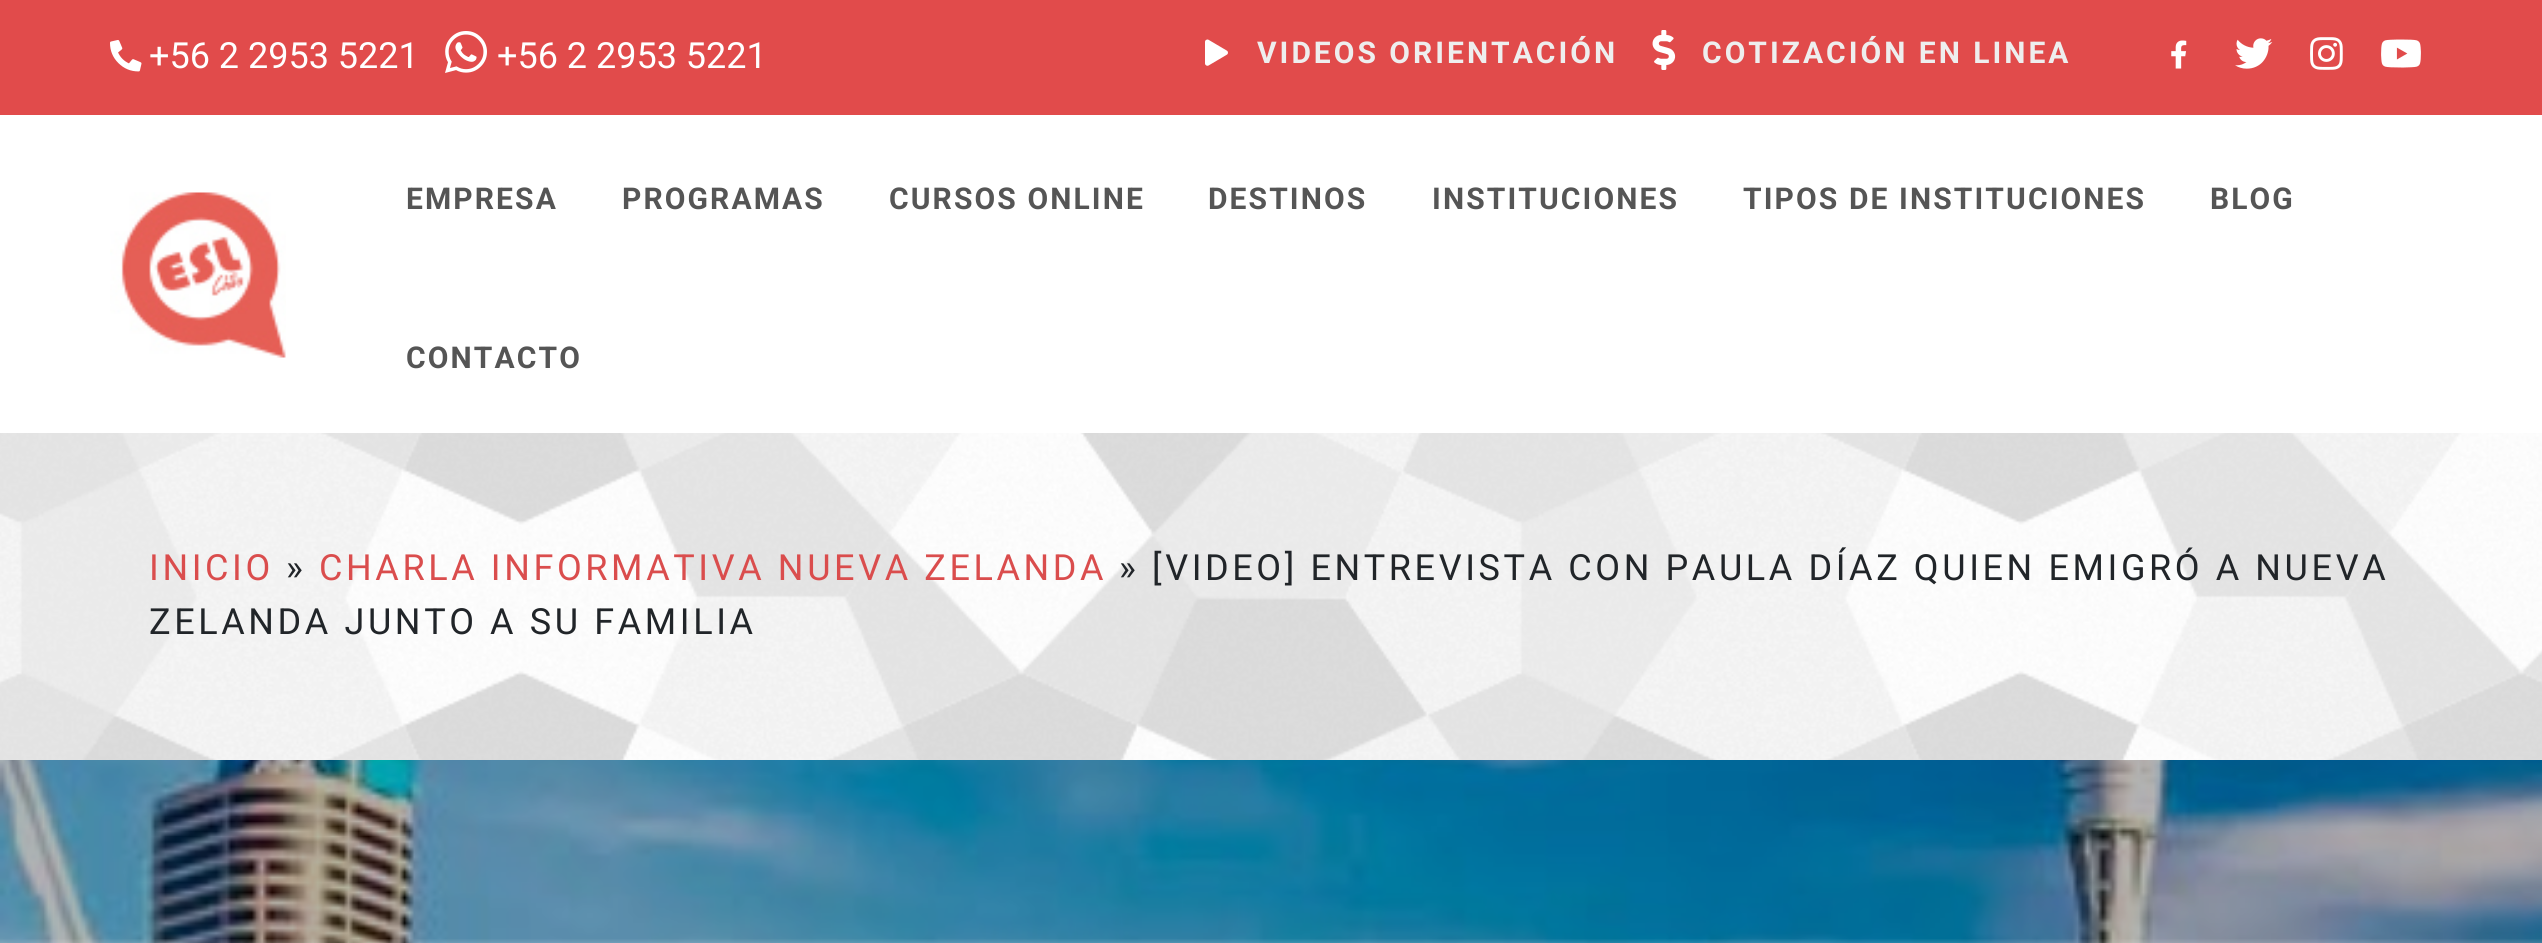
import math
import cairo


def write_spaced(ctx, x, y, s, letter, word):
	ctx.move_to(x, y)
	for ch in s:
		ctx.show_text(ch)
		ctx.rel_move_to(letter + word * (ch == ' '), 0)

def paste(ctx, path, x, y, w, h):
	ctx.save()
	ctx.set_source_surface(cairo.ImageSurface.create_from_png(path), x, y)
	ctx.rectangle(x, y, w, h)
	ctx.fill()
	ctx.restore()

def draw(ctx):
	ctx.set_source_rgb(1, 1, 1)
	ctx.paint()
	ctx.set_source_rgb(0.882, 0.294, 0.294)
	ctx.rectangle(0, 0, 2542, 115)
	ctx.fill()
	paste(ctx, 'media/1.png', 110, 40, 32, 32)
	ctx.select_font_face('Roboto')
	ctx.set_font_size(36)
	ctx.set_source_rgb(1, 1, 1)
	ctx.move_to(149, 68)
	ctx.show_text('+56 2 2953 5221')
	paste(ctx, 'media/2.png', 445, 31, 42, 42)
	ctx.move_to(497, 68)
	ctx.show_text('+56 2 2953 5221')
	paste(ctx, 'media/3.png', 1205, 39, 23, 27)
	ctx.select_font_face('Roboto', cairo.FONT_SLANT_NORMAL, cairo.FONT_WEIGHT_BOLD)
	ctx.set_font_size(30)
	ctx.set_source_rgb(0.933, 0.933, 0.933)
	write_spaced(ctx, 1257, 63, 'VIDEOS ORIENTACIÓN', 3, 0)
	paste(ctx, 'media/4.png', 1652, 30, 24, 40)
	write_spaced(ctx, 1702, 63, 'COTIZACIÓN EN LINEA', 3, 0)
	paste(ctx, 'media/5.png', 2171, 40, 16, 29)
	paste(ctx, 'media/6.png', 2235, 38, 38, 31)
	paste(ctx, 'media/7.png', 2310, 37, 33, 33)
	paste(ctx, 'media/8.png', 2381, 39, 40, 29)
	paste(ctx, 'media/9.png', 110, 192, 176, 166)
	ctx.set_source_rgb(0.333, 0.333, 0.333)
	for x, y, s in [
		(406, 209, 'EMPRESA'),
		(622, 209, 'PROGRAMAS'),
		(889, 209, 'CURSOS ONLINE'),
		(1208, 209, 'DESTINOS'),
		(1432, 209, 'INSTITUCIONES'),
		(1743, 209, 'TIPOS DE INSTITUCIONES'),
		(2210, 209, 'BLOG'),
		(406, 368, 'CONTACTO'),
	]:
		write_spaced(ctx, x, y, s, 2.1, 0)
	paste(ctx, 'media/10.png', 0, 433, 2542, 327)
	ctx.select_font_face('Roboto')
	ctx.set_font_size(36)
	ctx.set_source_rgb(0.855, 0.302, 0.302)
	write_spaced(ctx, 319, 580, 'CHARLA INFORMATIVA NUEVA ZELANDA', 3.6, 0)
	ctx.set_source_rgb(0.129, 0.145, 0.161)
	write_spaced(ctx, 1119, 580, '» [VIDEO] ENTREVISTA CON PAULA DÍAZ QUIEN EMIGRÓ A NUEVA', 3.6, 0)
	write_spaced(ctx, 149, 634, 'ZELANDA JUNTO A SU FAMILIA', 3.6, 0)
	ctx.set_source_rgb(0.855, 0.302, 0.302)
	write_spaced(ctx, 149, 580, 'INICIO', 3.6, 0)
	ctx.set_source_rgb(0.129, 0.145, 0.161)
	write_spaced(ctx, 286, 580, '»', 3.6, 0)
	paste(ctx, 'media/11.png', 0, 760, 2542, 183)


surface = cairo.ImageSurface(cairo.FORMAT_RGB24, 2542, 943)
ctx = cairo.Context(surface)
options = cairo.FontOptions()
options.set_hint_metrics(cairo.HINT_METRICS_OFF)
options.set_hint_style(cairo.HINT_STYLE_NONE)
ctx.set_font_options(options)
ctx.set_miter_limit(4)
draw(ctx)
surface.write_to_png('image.png')
